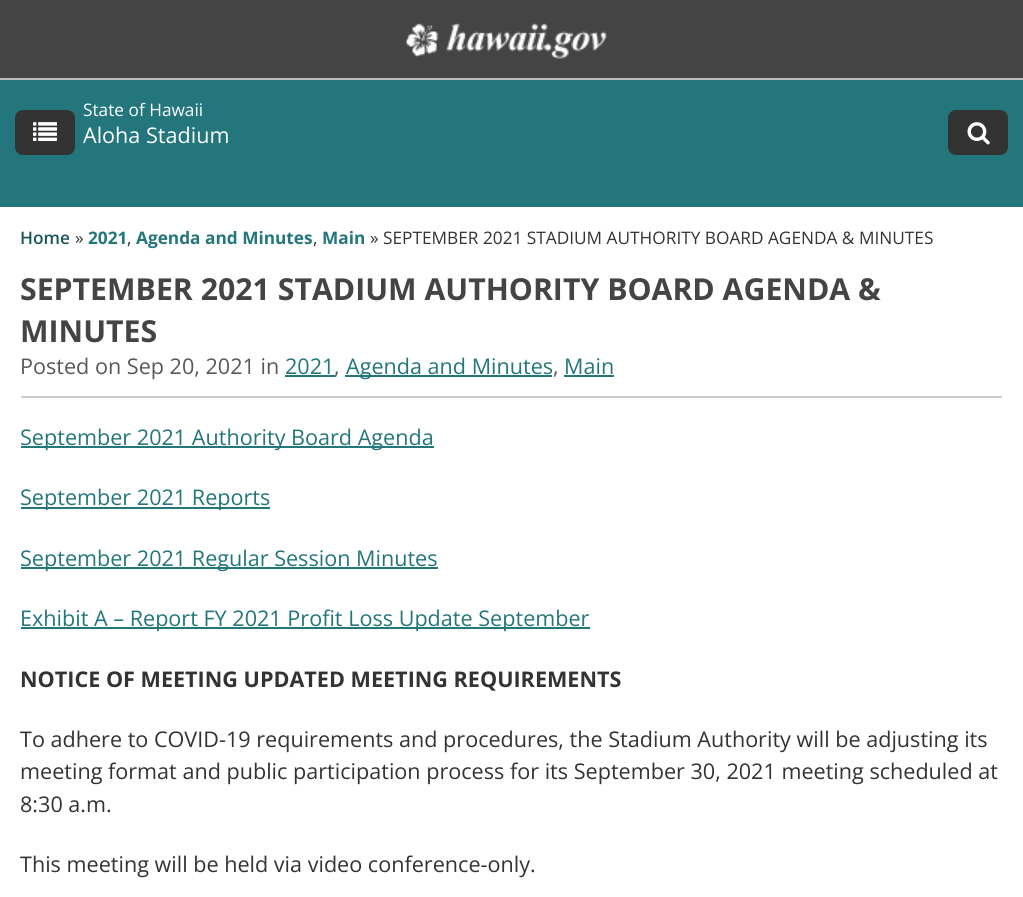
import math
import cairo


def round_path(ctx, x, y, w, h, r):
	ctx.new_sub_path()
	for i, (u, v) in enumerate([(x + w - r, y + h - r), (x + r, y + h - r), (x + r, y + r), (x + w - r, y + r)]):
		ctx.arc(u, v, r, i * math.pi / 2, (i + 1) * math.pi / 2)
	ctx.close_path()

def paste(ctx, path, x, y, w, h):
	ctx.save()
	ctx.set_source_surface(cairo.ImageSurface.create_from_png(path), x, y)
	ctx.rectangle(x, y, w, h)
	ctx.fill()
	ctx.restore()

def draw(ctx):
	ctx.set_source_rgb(1, 1, 1)
	ctx.paint()
	ctx.set_source_rgb(0.267, 0.267, 0.267)
	ctx.rectangle(0, 0, 1023, 78)
	ctx.fill()
	ctx.set_source_rgb(0.733, 0.733, 0.733)
	ctx.rectangle(0, 78, 1023, 2)
	ctx.fill()
	paste(ctx, 'media/1.png', 406, 23, 201, 36)
	ctx.set_source_rgb(0.133, 0.463, 0.486)
	ctx.rectangle(0, 80, 1023, 127)
	ctx.fill()
	ctx.set_source_rgb(0.2, 0.2, 0.2)
	round_path(ctx, 15, 110, 60, 45, 8)
	ctx.fill()
	paste(ctx, 'media/2.png', 33, 122, 24, 19)
	ctx.select_font_face('Open Sans')
	ctx.set_font_size(17.25)
	ctx.set_source_rgb(1, 1, 1)
	ctx.move_to(83, 116)
	ctx.show_text('State of Hawaii')
	ctx.set_font_size(21.6)
	ctx.move_to(83, 143)
	ctx.show_text('Aloha Stadium')
	ctx.set_source_rgb(0.2, 0.2, 0.2)
	round_path(ctx, 948, 110, 60, 45, 8)
	ctx.fill()
	paste(ctx, 'media/3.png', 967, 122, 23, 23)
	ctx.select_font_face('Open Sans SemiBold')
	ctx.set_font_size(17.25)
	ctx.set_source_rgb(0.098, 0.337, 0.357)
	ctx.move_to(20, 244)
	ctx.show_text('Home')
	ctx.select_font_face('Open Sans')
	ctx.set_source_rgb(0.2, 0.2, 0.2)
	ctx.move_to(75, 244)
	ctx.show_text('»')
	ctx.select_font_face('Open Sans', cairo.FONT_SLANT_NORMAL, cairo.FONT_WEIGHT_BOLD)
	ctx.set_source_rgb(0.133, 0.463, 0.486)
	for x, y, s in [
		(88, 244, '2021'),
		(136, 244, 'Agenda and Minutes'),
		(322, 244, 'Main'),
	]:
		ctx.move_to(x, y)
		ctx.show_text(s)
	ctx.select_font_face('Open Sans')
	ctx.set_source_rgb(0.2, 0.2, 0.2)
	for x, y, s in [
		(370, 244, '» SEPTEMBER 2021 STADIUM AUTHORITY BOARD AGENDA & MINUTES'),
		(127, 244, ','),
		(313, 244, ','),
	]:
		ctx.move_to(x, y)
		ctx.show_text(s)
	ctx.set_source_rgb(0.8, 0.8, 0.8)
	ctx.rectangle(21, 396, 981, 2)
	ctx.fill()
	ctx.select_font_face('Open Sans', cairo.FONT_SLANT_NORMAL, cairo.FONT_WEIGHT_BOLD)
	ctx.set_font_size(30.25)
	ctx.set_source_rgb(0.267, 0.267, 0.267)
	ctx.move_to(20, 300)
	ctx.show_text('SEPTEMBER 2021 STADIUM AUTHORITY BOARD AGENDA &')
	ctx.move_to(20, 342)
	ctx.show_text('MINUTES')
	ctx.select_font_face('Open Sans')
	ctx.set_font_size(21.6)
	ctx.set_source_rgb(0.345, 0.345, 0.357)
	ctx.move_to(20, 374)
	ctx.show_text('Posted on Sep 20, 2021 in')
	ctx.set_source_rgb(0.133, 0.463, 0.486)
	ctx.move_to(285, 374)
	ctx.show_text('2021')
	ctx.set_source_rgb(0.345, 0.345, 0.357)
	ctx.move_to(334, 374)
	ctx.show_text(',')
	ctx.set_source_rgb(0.133, 0.463, 0.486)
	ctx.rectangle(285, 375, 50, 2)
	ctx.fill()
	ctx.rectangle(345, 375, 207, 2)
	ctx.fill()
	ctx.move_to(346, 374)
	ctx.show_text('Agenda and Minutes')
	ctx.set_source_rgb(0.345, 0.345, 0.357)
	ctx.move_to(553, 374)
	ctx.show_text(',')
	ctx.set_source_rgb(0.133, 0.463, 0.486)
	ctx.rectangle(564, 375, 50, 2)
	ctx.fill()
	ctx.move_to(564, 374)
	ctx.show_text('Main')
	ctx.rectangle(21, 446, 413, 2)
	ctx.fill()
	ctx.move_to(20, 445)
	ctx.show_text('September 2021 Authority Board Agenda')
	ctx.rectangle(21, 507, 249, 2)
	ctx.fill()
	ctx.move_to(20, 505)
	ctx.show_text('September 2021 Reports')
	ctx.rectangle(21, 567, 417, 2)
	ctx.fill()
	ctx.move_to(20, 566)
	ctx.show_text('September 2021 Regular Session Minutes')
	ctx.rectangle(21, 627, 569, 2)
	ctx.fill()
	ctx.move_to(20, 626)
	ctx.show_text('Exhibit A – Report FY 2021 Profit Loss Update September')
	ctx.select_font_face('Open Sans', cairo.FONT_SLANT_NORMAL, cairo.FONT_WEIGHT_BOLD)
	ctx.set_source_rgb(0.2, 0.2, 0.2)
	ctx.move_to(20, 687)
	ctx.show_text('NOTICE OF MEETING UPDATED MEETING REQUIREMENTS')
	ctx.select_font_face('Open Sans')
	for x, y, s in [
		(20, 747, 'To adhere to COVID-19 requirements and procedures, the Stadium Authority will be adjusting its'),
		(20, 779, 'meeting format and public participation process for its September 30, 2021 meeting scheduled at'),
		(20, 812, '8:30 a.m.'),
		(20, 872, 'This meeting will be held via video conference-only.'),
	]:
		ctx.move_to(x, y)
		ctx.show_text(s)


surface = cairo.ImageSurface(cairo.FORMAT_RGB24, 1023, 897)
ctx = cairo.Context(surface)
options = cairo.FontOptions()
options.set_hint_metrics(cairo.HINT_METRICS_OFF)
options.set_hint_style(cairo.HINT_STYLE_NONE)
ctx.set_font_options(options)
ctx.set_miter_limit(4)
draw(ctx)
surface.write_to_png('image.png')
